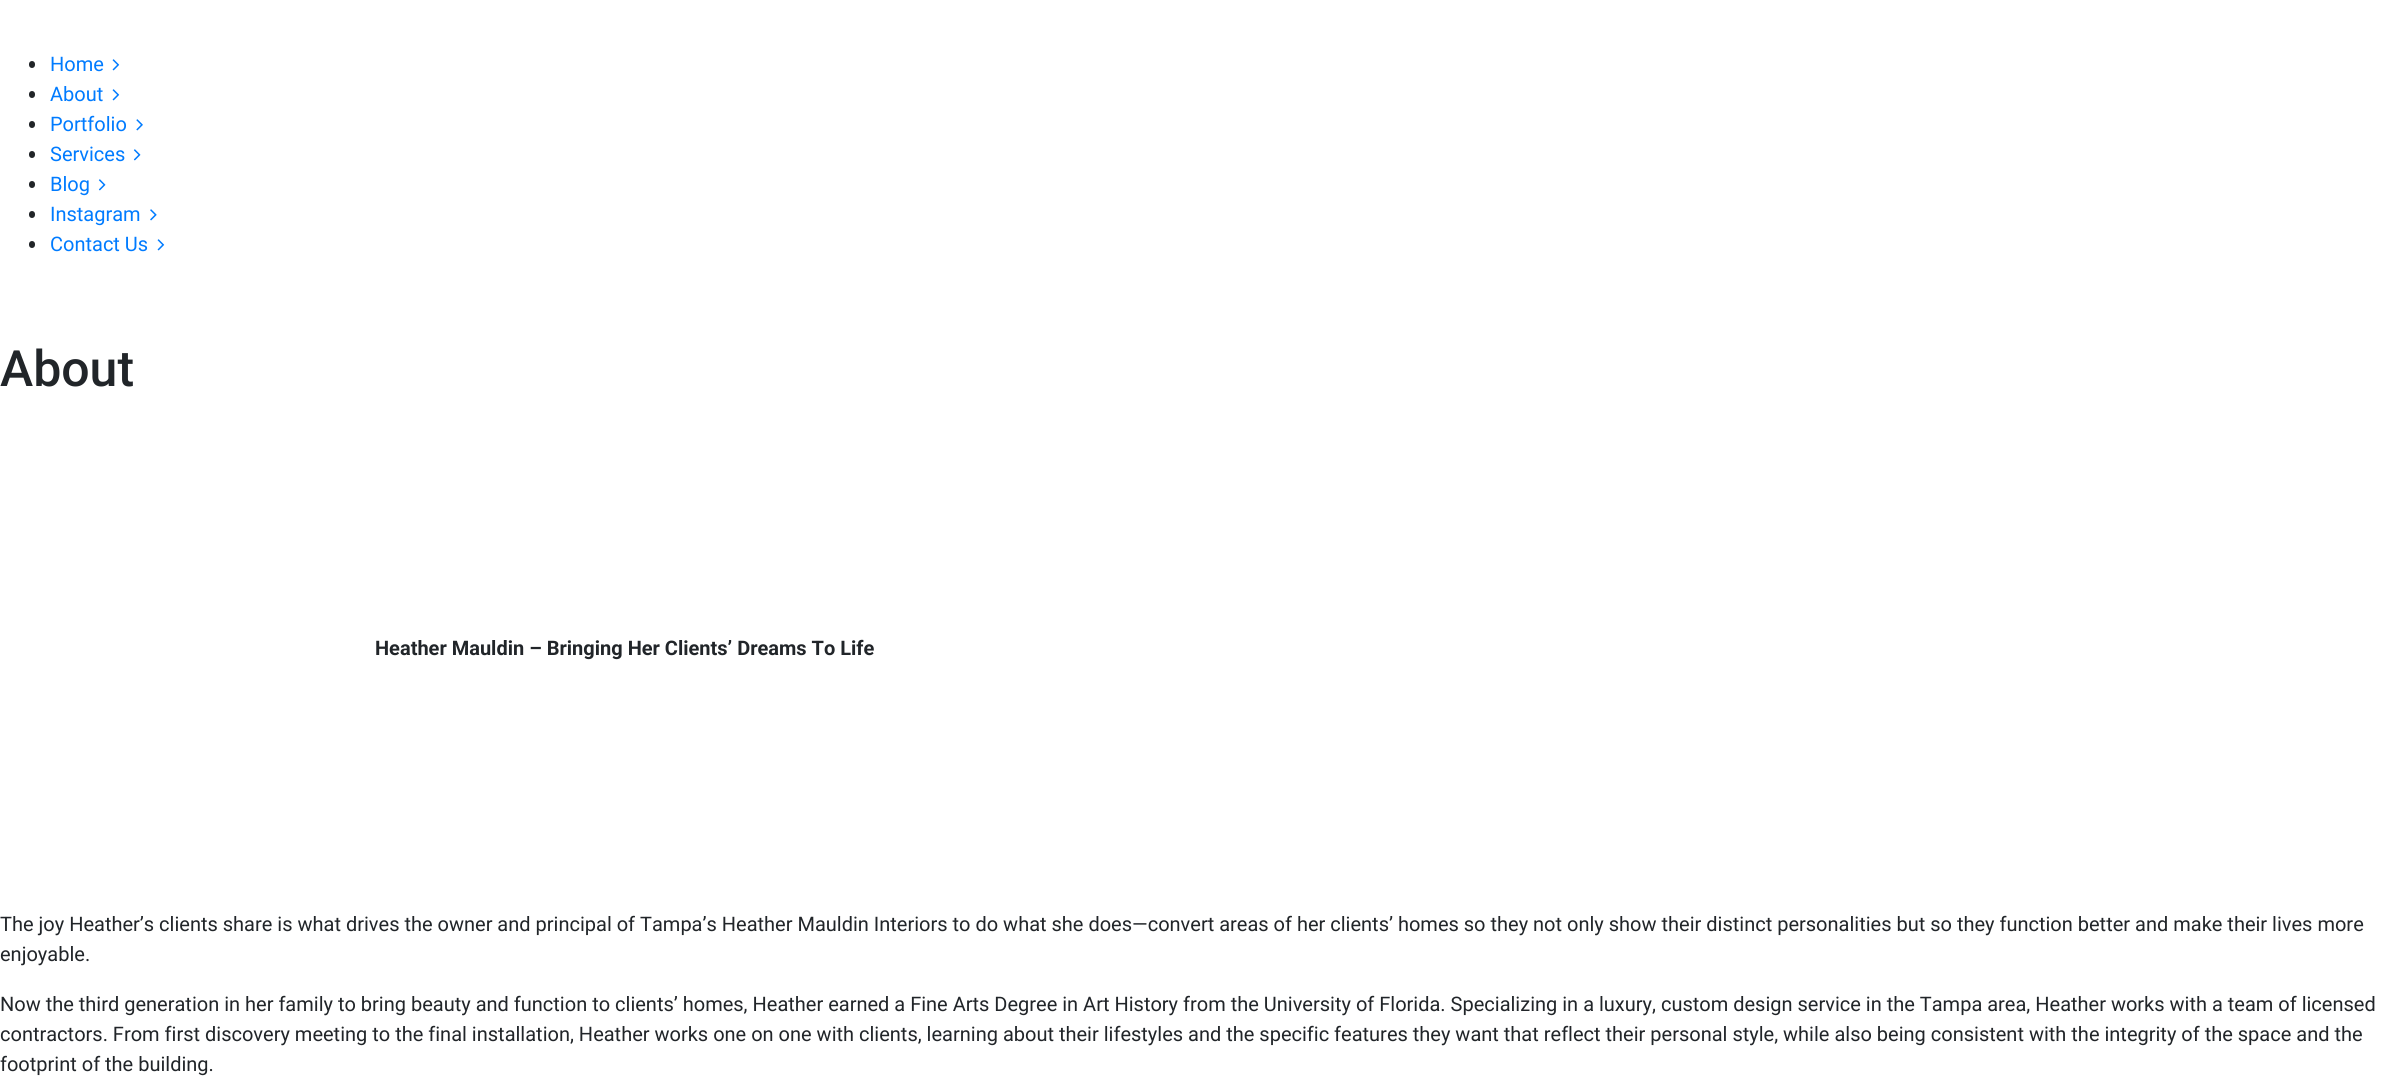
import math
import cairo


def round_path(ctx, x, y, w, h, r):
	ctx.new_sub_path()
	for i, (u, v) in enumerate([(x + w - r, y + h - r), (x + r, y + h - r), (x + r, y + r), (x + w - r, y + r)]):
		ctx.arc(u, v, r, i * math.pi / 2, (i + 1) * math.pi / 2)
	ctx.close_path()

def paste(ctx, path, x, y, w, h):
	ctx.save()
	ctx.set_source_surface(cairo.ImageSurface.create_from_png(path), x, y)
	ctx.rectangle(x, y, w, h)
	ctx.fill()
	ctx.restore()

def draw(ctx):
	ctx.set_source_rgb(1, 1, 1)
	ctx.paint()
	ctx.set_source_rgb(0.129, 0.145, 0.161)
	round_path(ctx, 29, 61, 6, 7, 3)
	ctx.fill()
	ctx.select_font_face('Roboto')
	ctx.set_font_size(20)
	ctx.set_source_rgb(0, 0.482, 1)
	ctx.move_to(50, 71)
	ctx.show_text('Home')
	paste(ctx, 'media/1.png', 112, 59, 8, 12)
	ctx.set_source_rgb(0.129, 0.145, 0.161)
	round_path(ctx, 29, 91, 6, 7, 3)
	ctx.fill()
	ctx.set_source_rgb(0, 0.482, 1)
	ctx.move_to(50, 101)
	ctx.show_text('About')
	paste(ctx, 'media/1.png', 112, 89, 8, 12)
	ctx.set_source_rgb(0.129, 0.145, 0.161)
	round_path(ctx, 29, 121, 6, 7, 3)
	ctx.fill()
	ctx.set_source_rgb(0, 0.482, 1)
	ctx.move_to(50, 131)
	ctx.show_text('Portfolio')
	paste(ctx, 'media/2.png', 136, 119, 7, 12)
	ctx.set_source_rgb(0.129, 0.145, 0.161)
	round_path(ctx, 29, 151, 6, 7, 3)
	ctx.fill()
	ctx.set_source_rgb(0, 0.482, 1)
	ctx.move_to(50, 161)
	ctx.show_text('Services')
	paste(ctx, 'media/3.png', 133, 149, 8, 12)
	ctx.set_source_rgb(0.129, 0.145, 0.161)
	round_path(ctx, 29, 181, 6, 7, 3)
	ctx.fill()
	ctx.set_source_rgb(0, 0.482, 1)
	ctx.move_to(50, 191)
	ctx.show_text('Blog')
	paste(ctx, 'media/3.png', 98, 179, 8, 12)
	ctx.set_source_rgb(0.129, 0.145, 0.161)
	round_path(ctx, 29, 211, 6, 7, 3)
	ctx.fill()
	ctx.set_source_rgb(0, 0.482, 1)
	ctx.move_to(50, 221)
	ctx.show_text('Instagram')
	paste(ctx, 'media/4.png', 150, 209, 7, 12)
	ctx.set_source_rgb(0.129, 0.145, 0.161)
	round_path(ctx, 29, 241, 6, 7, 3)
	ctx.fill()
	ctx.set_source_rgb(0, 0.482, 1)
	ctx.move_to(50, 251)
	ctx.show_text('Contact Us')
	paste(ctx, 'media/1.png', 157, 239, 8, 12)
	ctx.select_font_face('Roboto Medium')
	ctx.set_font_size(50)
	ctx.set_source_rgb(0.129, 0.145, 0.161)
	ctx.move_to(0, 386)
	ctx.show_text('About')
	ctx.select_font_face('Roboto', cairo.FONT_SLANT_NORMAL, cairo.FONT_WEIGHT_BOLD)
	ctx.set_font_size(20)
	ctx.move_to(375, 655)
	ctx.show_text('Heather Mauldin – Bringing Her Clients’ Dreams To Life')
	ctx.select_font_face('Roboto')
	for x, y, s in [
		(0, 931, 'The joy Heather’s clients share is what drives the owner and principal of Tampa’s Heather Mauldin Interiors to do what she does—convert areas of her clients’ homes so they not only show their distinct personalities but so they function better and make their lives more'),
		(0, 961, 'enjoyable.'),
		(0, 1011, 'Now the third generation in her family to bring beauty and function to clients’ homes, Heather earned a Fine Arts Degree in Art History from the University of Florida. Specializing in a luxury, custom design service in the Tampa area, Heather works with a team of licensed'),
		(0, 1041, 'contractors. From first discovery meeting to the final installation, Heather works one on one with clients, learning about their lifestyles and the specific features they want that reflect their personal style, while also being consistent with the integrity of the space and the'),
		(0, 1071, 'footprint of the building.'),
	]:
		ctx.move_to(x, y)
		ctx.show_text(s)


surface = cairo.ImageSurface(cairo.FORMAT_RGB24, 2403, 1088)
ctx = cairo.Context(surface)
options = cairo.FontOptions()
options.set_hint_metrics(cairo.HINT_METRICS_OFF)
options.set_hint_style(cairo.HINT_STYLE_NONE)
ctx.set_font_options(options)
ctx.set_miter_limit(4)
draw(ctx)
surface.write_to_png('image.png')
